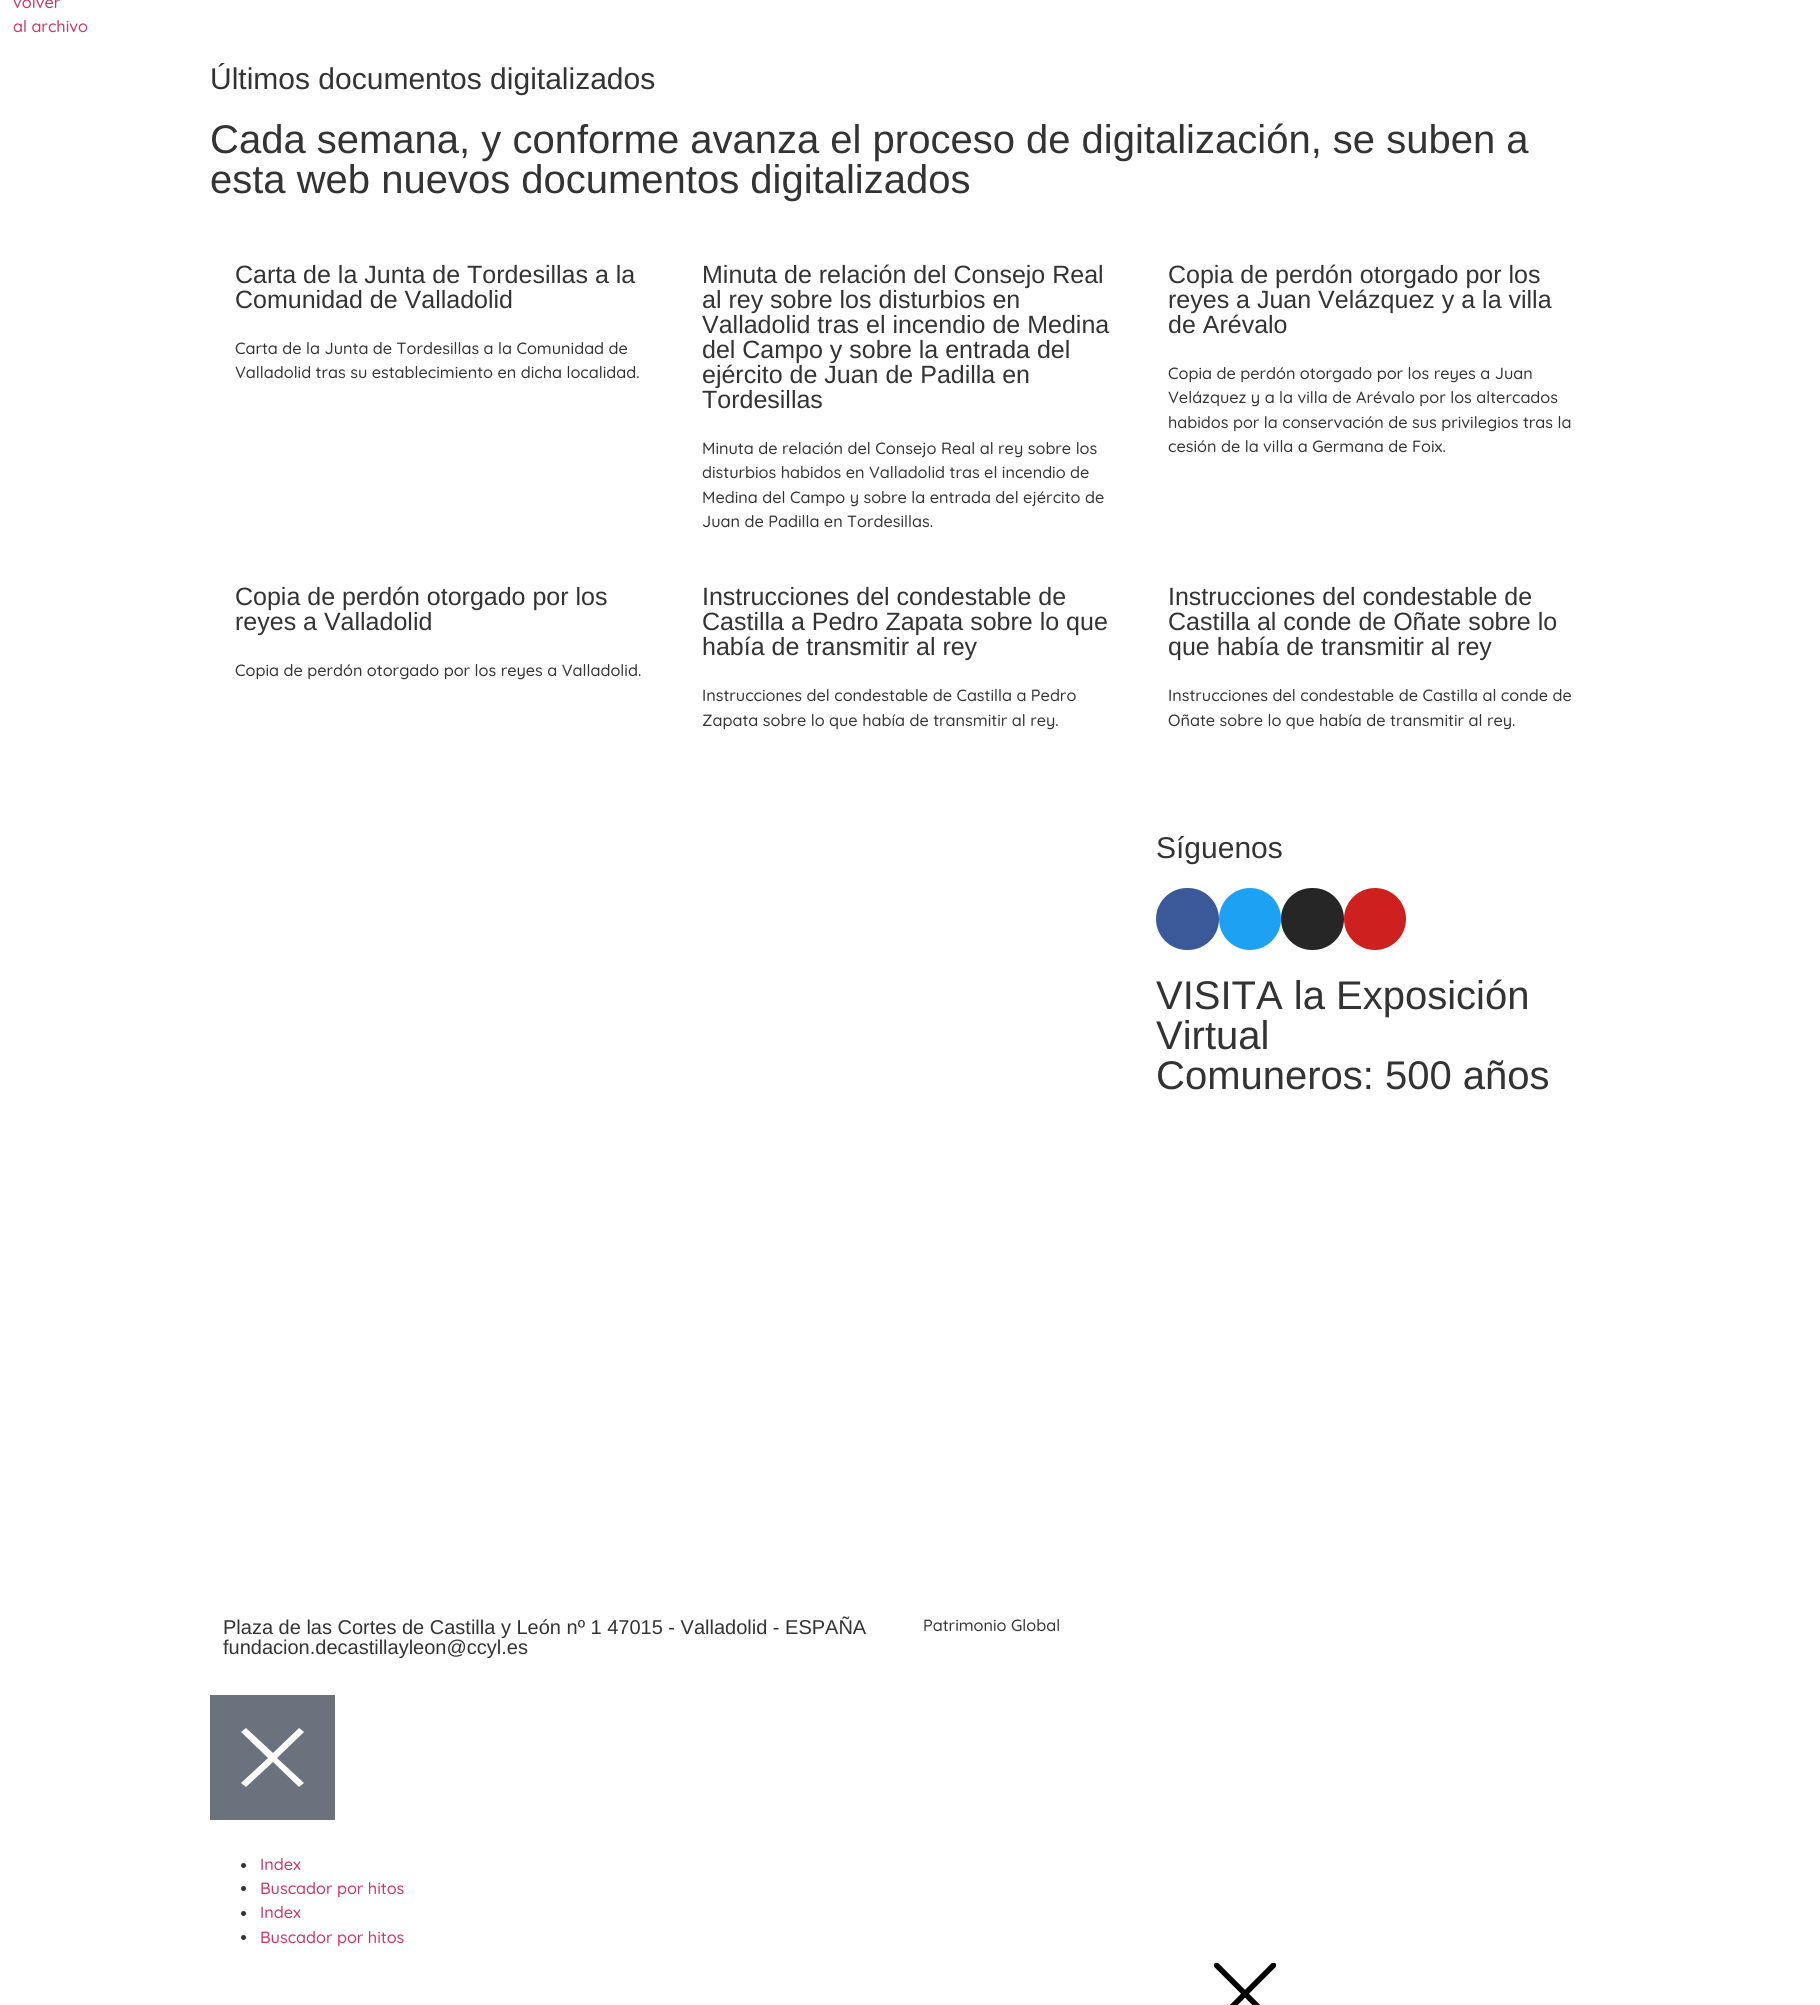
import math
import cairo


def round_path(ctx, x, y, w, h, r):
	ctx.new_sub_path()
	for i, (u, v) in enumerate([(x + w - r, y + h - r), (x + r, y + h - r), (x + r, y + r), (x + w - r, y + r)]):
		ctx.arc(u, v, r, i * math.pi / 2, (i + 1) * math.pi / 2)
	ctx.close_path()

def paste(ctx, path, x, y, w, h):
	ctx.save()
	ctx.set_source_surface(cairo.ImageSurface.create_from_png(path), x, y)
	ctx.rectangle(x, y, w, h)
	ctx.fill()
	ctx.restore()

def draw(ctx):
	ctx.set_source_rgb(1, 1, 1)
	ctx.paint()
	ctx.select_font_face('Quicksand Medium')
	ctx.set_font_size(16.25)
	ctx.set_source_rgb(0.8, 0.2, 0.4)
	ctx.move_to(13, 8)
	ctx.show_text('volver')
	ctx.move_to(13, 32)
	ctx.show_text('al archivo')
	ctx.select_font_face('Liberation Sans')
	ctx.set_font_size(30)
	ctx.set_source_rgb(0.2, 0.2, 0.2)
	ctx.move_to(210, 89)
	ctx.show_text('Últimos documentos digitalizados')
	ctx.set_font_size(40)
	ctx.move_to(210, 153)
	ctx.show_text('Cada semana, y conforme avanza el proceso de digitalización, se suben a')
	ctx.move_to(210, 193)
	ctx.show_text('esta web nuevos documentos digitalizados')
	ctx.set_font_size(25)
	ctx.move_to(235, 283)
	ctx.show_text('Carta de la Junta de Tordesillas a la')
	ctx.move_to(235, 308)
	ctx.show_text('Comunidad de Valladolid')
	ctx.select_font_face('Quicksand Medium')
	ctx.set_font_size(16.25)
	ctx.move_to(235, 354)
	ctx.show_text('Carta de la Junta de Tordesillas a la Comunidad de')
	ctx.move_to(235, 378)
	ctx.show_text('Valladolid tras su establecimiento en dicha localidad.')
	ctx.select_font_face('Liberation Sans')
	ctx.set_font_size(25)
	for x, y, s in [
		(702, 283, 'Minuta de relación del Consejo Real'),
		(702, 308, 'al rey sobre los disturbios en'),
		(702, 333, 'Valladolid tras el incendio de Medina'),
		(702, 358, 'del Campo y sobre la entrada del'),
		(702, 383, 'ejército de Juan de Padilla en'),
		(702, 408, 'Tordesillas'),
	]:
		ctx.move_to(x, y)
		ctx.show_text(s)
	ctx.select_font_face('Quicksand Medium')
	ctx.set_font_size(16.25)
	for x, y, s in [
		(702, 454, 'Minuta de relación del Consejo Real al rey sobre los'),
		(702, 478, 'disturbios habidos en Valladolid tras el incendio de'),
		(702, 503, 'Medina del Campo y sobre la entrada del ejército de'),
		(702, 527, 'Juan de Padilla en Tordesillas.'),
	]:
		ctx.move_to(x, y)
		ctx.show_text(s)
	ctx.select_font_face('Liberation Sans')
	ctx.set_font_size(25)
	for x, y, s in [
		(1168, 283, 'Copia de perdón otorgado por los'),
		(1168, 308, 'reyes a Juan Velázquez y a la villa'),
		(1168, 333, 'de Arévalo'),
	]:
		ctx.move_to(x, y)
		ctx.show_text(s)
	ctx.select_font_face('Quicksand Medium')
	ctx.set_font_size(16.25)
	for x, y, s in [
		(1168, 379, 'Copia de perdón otorgado por los reyes a Juan'),
		(1168, 403, 'Velázquez y a la villa de Arévalo por los altercados'),
		(1168, 428, 'habidos por la conservación de sus privilegios tras la'),
		(1168, 452, 'cesión de la villa a Germana de Foix.'),
	]:
		ctx.move_to(x, y)
		ctx.show_text(s)
	ctx.select_font_face('Liberation Sans')
	ctx.set_font_size(25)
	ctx.move_to(235, 605)
	ctx.show_text('Copia de perdón otorgado por los')
	ctx.move_to(235, 630)
	ctx.show_text('reyes a Valladolid')
	ctx.select_font_face('Quicksand Medium')
	ctx.set_font_size(16.25)
	ctx.move_to(235, 676)
	ctx.show_text('Copia de perdón otorgado por los reyes a Valladolid.')
	ctx.select_font_face('Liberation Sans')
	ctx.set_font_size(25)
	for x, y, s in [
		(702, 605, 'Instrucciones del condestable de'),
		(702, 630, 'Castilla a Pedro Zapata sobre lo que'),
		(702, 655, 'había de transmitir al rey'),
	]:
		ctx.move_to(x, y)
		ctx.show_text(s)
	ctx.select_font_face('Quicksand Medium')
	ctx.set_font_size(16.25)
	ctx.move_to(702, 701)
	ctx.show_text('Instrucciones del condestable de Castilla a Pedro')
	ctx.move_to(702, 726)
	ctx.show_text('Zapata sobre lo que había de transmitir al rey.')
	ctx.select_font_face('Liberation Sans')
	ctx.set_font_size(25)
	for x, y, s in [
		(1168, 605, 'Instrucciones del condestable de'),
		(1168, 630, 'Castilla al conde de Oñate sobre lo'),
		(1168, 655, 'que había de transmitir al rey'),
	]:
		ctx.move_to(x, y)
		ctx.show_text(s)
	ctx.select_font_face('Quicksand Medium')
	ctx.set_font_size(16.25)
	ctx.move_to(1168, 701)
	ctx.show_text('Instrucciones del condestable de Castilla al conde de')
	ctx.move_to(1168, 726)
	ctx.show_text('Oñate sobre lo que había de transmitir al rey.')
	ctx.select_font_face('Liberation Sans')
	ctx.set_font_size(30)
	ctx.move_to(1156, 858)
	ctx.show_text('Síguenos')
	ctx.set_source_rgb(0.231, 0.349, 0.596)
	round_path(ctx, 1156, 888, 63, 62, 31)
	ctx.fill()
	ctx.set_source_rgb(0.114, 0.631, 0.949)
	ctx.arc(1250, 919, 31, 0, 2 * math.pi)
	ctx.fill()
	ctx.set_source_rgb(0.149, 0.149, 0.149)
	round_path(ctx, 1281, 888, 63, 62, 31)
	ctx.fill()
	ctx.set_source_rgb(0.804, 0.125, 0.122)
	ctx.arc(1375, 919, 31, 0, 2 * math.pi)
	ctx.fill()
	ctx.set_font_size(40)
	ctx.set_source_rgb(0.2, 0.2, 0.2)
	for x, y, s in [
		(1156, 1009, 'VISITA la Exposición'),
		(1156, 1049, 'Virtual'),
		(1156, 1089, 'Comuneros: 500 años'),
	]:
		ctx.move_to(x, y)
		ctx.show_text(s)
	ctx.set_font_size(20)
	ctx.move_to(223, 1634)
	ctx.show_text('Plaza de las Cortes de Castilla y León nº 1 47015 - Valladolid - ESPAÑA')
	ctx.move_to(223, 1654)
	ctx.show_text('fundacion.decastillayleon@ccyl.es')
	ctx.select_font_face('Quicksand Medium')
	ctx.set_font_size(16.25)
	ctx.move_to(923, 1631)
	ctx.show_text('Patrimonio Global')
	ctx.set_source_rgb(0.412, 0.447, 0.49)
	ctx.rectangle(210, 1695, 125, 125)
	ctx.fill()
	ctx.set_source_rgb(1, 1, 1)
	ctx.new_path()
	ctx.move_to(304, 1732)
	ctx.line_to(299, 1728)
	ctx.line_to(273, 1753)
	ctx.line_to(246, 1728)
	ctx.line_to(241, 1732)
	ctx.line_to(268, 1758)
	ctx.line_to(241, 1783)
	ctx.line_to(246, 1787)
	ctx.line_to(273, 1762)
	ctx.line_to(299, 1787)
	ctx.line_to(304, 1783)
	ctx.line_to(277, 1758)
	ctx.close_path()
	ctx.fill()
	ctx.set_source_rgb(0.2, 0.2, 0.2)
	ctx.arc(243.5, 1865.5, 2.5, 0, 2 * math.pi)
	ctx.fill()
	ctx.set_source_rgb(0.8, 0.2, 0.4)
	ctx.move_to(260, 1870)
	ctx.show_text('Index')
	ctx.set_source_rgb(0.2, 0.2, 0.2)
	ctx.new_path()
	ctx.arc(243.5, 1888.5, 2.5, 0, 2 * math.pi)
	ctx.fill()
	ctx.set_source_rgb(0.8, 0.2, 0.4)
	ctx.move_to(260, 1894)
	ctx.show_text('Buscador por hitos')
	ctx.set_source_rgb(0.2, 0.2, 0.2)
	ctx.new_path()
	ctx.arc(243.5, 1913.5, 2.5, 0, 2 * math.pi)
	ctx.fill()
	ctx.set_source_rgb(0.8, 0.2, 0.4)
	ctx.move_to(260, 1918)
	ctx.show_text('Index')
	ctx.set_source_rgb(0.2, 0.2, 0.2)
	ctx.new_path()
	ctx.arc(243.5, 1937.5, 2.5, 0, 2 * math.pi)
	ctx.fill()
	ctx.set_source_rgb(0.8, 0.2, 0.4)
	ctx.move_to(260, 1943)
	ctx.show_text('Buscador por hitos')
	paste(ctx, 'media/1.png', 1214, 1963, 62, 42)


surface = cairo.ImageSurface(cairo.FORMAT_RGB24, 1820, 2005)
ctx = cairo.Context(surface)
options = cairo.FontOptions()
options.set_hint_metrics(cairo.HINT_METRICS_OFF)
options.set_hint_style(cairo.HINT_STYLE_NONE)
ctx.set_font_options(options)
ctx.set_miter_limit(4)
draw(ctx)
surface.write_to_png('image.png')
